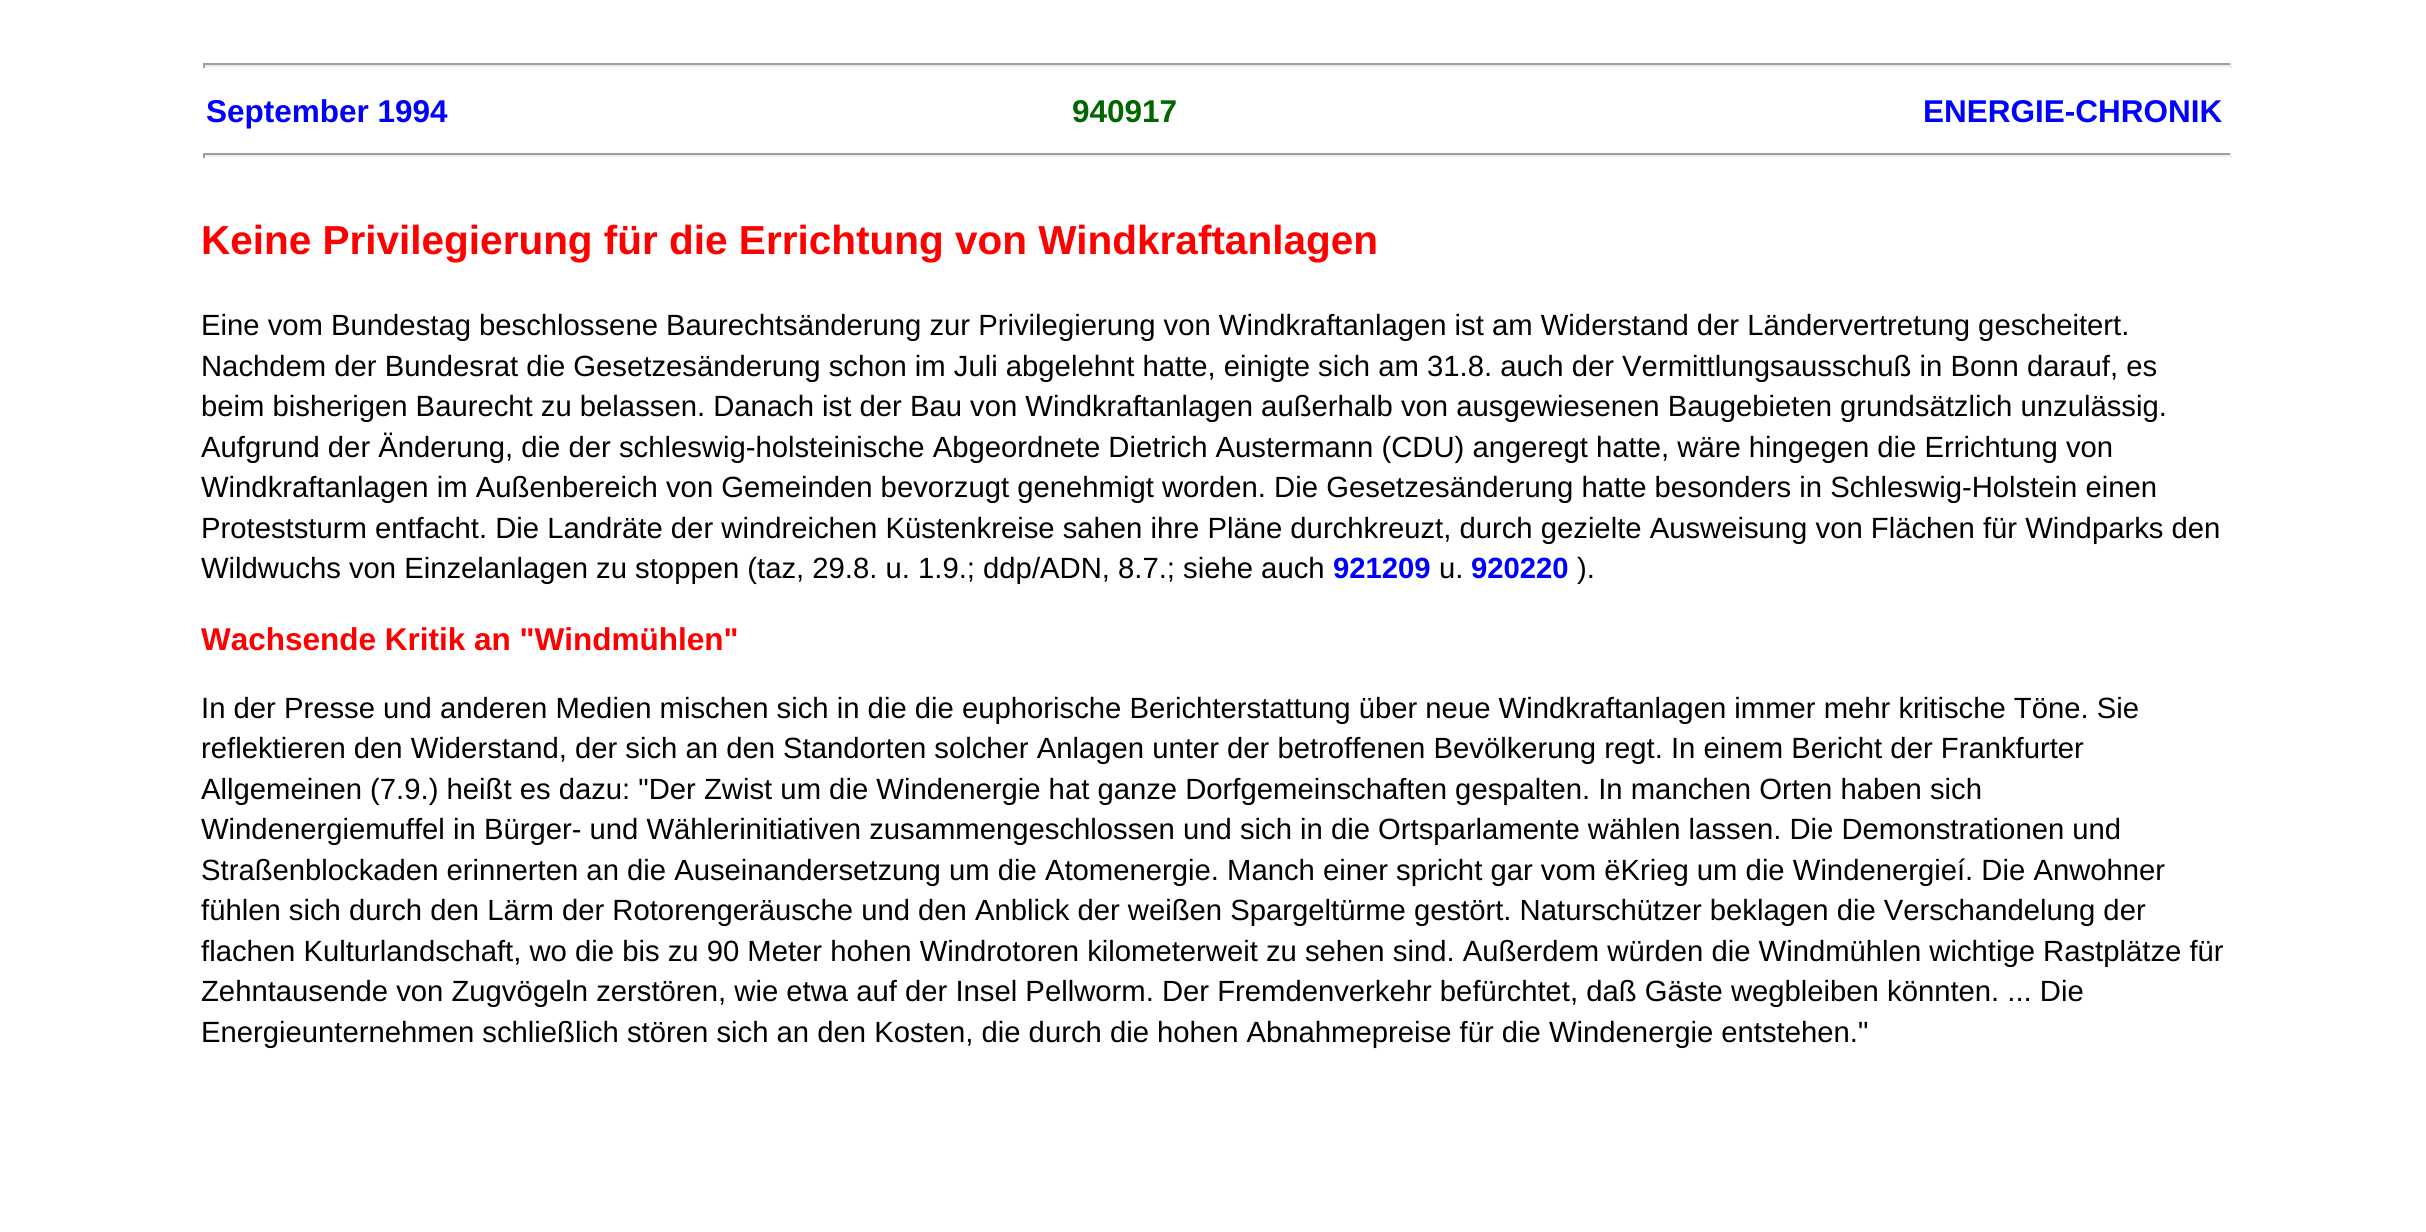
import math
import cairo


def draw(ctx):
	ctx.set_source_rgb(1, 1, 1)
	ctx.paint()
	ctx.set_source_rgb(0.624, 0.624, 0.624)
	ctx.rectangle(203, 63, 2029, 2)
	ctx.fill()
	ctx.set_source_rgb(0.933, 0.933, 0.933)
	ctx.rectangle(2230, 63, 2, 5)
	ctx.rectangle(203, 65, 2029, 2)
	ctx.fill()
	ctx.set_source_rgb(0.624, 0.624, 0.624)
	ctx.rectangle(203, 63, 2, 5)
	ctx.fill()
	ctx.select_font_face('Liberation Sans', cairo.FONT_SLANT_NORMAL, cairo.FONT_WEIGHT_BOLD)
	ctx.set_font_size(31.5)
	ctx.set_source_rgb(0, 0, 1)
	ctx.move_to(206, 122)
	ctx.show_text('September 1994')
	ctx.set_source_rgb(0, 0.4, 0)
	ctx.move_to(1072, 122)
	ctx.show_text('940917')
	ctx.set_source_rgb(0, 0, 1)
	ctx.move_to(1923, 122)
	ctx.show_text('ENERGIE-CHRONIK')
	ctx.set_source_rgb(0.624, 0.624, 0.624)
	ctx.rectangle(203, 153, 2029, 2)
	ctx.fill()
	ctx.set_source_rgb(0.933, 0.933, 0.933)
	ctx.rectangle(2230, 153, 2, 5)
	ctx.rectangle(203, 155, 2029, 2)
	ctx.fill()
	ctx.set_source_rgb(0.624, 0.624, 0.624)
	ctx.rectangle(203, 153, 2, 5)
	ctx.fill()
	ctx.set_font_size(40.5)
	ctx.set_source_rgb(1, 0, 0)
	ctx.move_to(201, 254)
	ctx.show_text('Keine Privilegierung für die Errichtung von Windkraftanlagen')
	ctx.select_font_face('Liberation Sans')
	ctx.set_font_size(29.25)
	ctx.set_source_rgb(0, 0, 0)
	for x, y, s in [
		(201, 335, 'Eine vom Bundestag beschlossene Baurechtsänderung zur Privilegierung von Windkraftanlagen ist am Widerstand der Ländervertretung gescheitert.'),
		(201, 376, 'Nachdem der Bundesrat die Gesetzesänderung schon im Juli abgelehnt hatte, einigte sich am 31.8. auch der Vermittlungsausschuß in Bonn darauf, es'),
		(201, 416, 'beim bisherigen Baurecht zu belassen. Danach ist der Bau von Windkraftanlagen außerhalb von ausgewiesenen Baugebieten grundsätzlich unzulässig.'),
		(201, 457, 'Aufgrund der Änderung, die der schleswig-holsteinische Abgeordnete Dietrich Austermann (CDU) angeregt hatte, wäre hingegen die Errichtung von'),
		(201, 497, 'Windkraftanlagen im Außenbereich von Gemeinden bevorzugt genehmigt worden. Die Gesetzesänderung hatte besonders in Schleswig-Holstein einen'),
		(201, 538, 'Proteststurm entfacht. Die Landräte der windreichen Küstenkreise sahen ihre Pläne durchkreuzt, durch gezielte Ausweisung von Flächen für Windparks den'),
		(201, 578, 'Wildwuchs von Einzelanlagen zu stoppen (taz, 29.8. u. 1.9.; ddp/ADN, 8.7.; siehe auch'),
	]:
		ctx.move_to(x, y)
		ctx.show_text(s)
	ctx.select_font_face('Liberation Sans', cairo.FONT_SLANT_NORMAL, cairo.FONT_WEIGHT_BOLD)
	ctx.set_source_rgb(0, 0, 1)
	ctx.move_to(1333, 578)
	ctx.show_text('921209')
	ctx.select_font_face('Liberation Sans')
	ctx.set_source_rgb(0, 0, 0)
	ctx.move_to(1439, 578)
	ctx.show_text('u.')
	ctx.select_font_face('Liberation Sans', cairo.FONT_SLANT_NORMAL, cairo.FONT_WEIGHT_BOLD)
	ctx.set_source_rgb(0, 0, 1)
	ctx.move_to(1471, 578)
	ctx.show_text('920220')
	ctx.select_font_face('Liberation Sans')
	ctx.set_source_rgb(0, 0, 0)
	ctx.move_to(1577, 578)
	ctx.show_text(').')
	ctx.select_font_face('Liberation Sans', cairo.FONT_SLANT_NORMAL, cairo.FONT_WEIGHT_BOLD)
	ctx.set_font_size(31.5)
	ctx.set_source_rgb(1, 0, 0)
	ctx.move_to(201, 650)
	ctx.show_text('Wachsende Kritik an "Windmühlen"')
	ctx.select_font_face('Liberation Sans')
	ctx.set_font_size(29.25)
	ctx.set_source_rgb(0, 0, 0)
	for x, y, s in [
		(201, 718, 'In der Presse und anderen Medien mischen sich in die die euphorische Berichterstattung über neue Windkraftanlagen immer mehr kritische Töne. Sie'),
		(201, 758, 'reflektieren den Widerstand, der sich an den Standorten solcher Anlagen unter der betroffenen Bevölkerung regt. In einem Bericht der Frankfurter'),
		(201, 799, 'Allgemeinen (7.9.) heißt es dazu: "Der Zwist um die Windenergie hat ganze Dorfgemeinschaften gespalten. In manchen Orten haben sich'),
		(201, 839, 'Windenergiemuffel in Bürger- und Wählerinitiativen zusammengeschlossen und sich in die Ortsparlamente wählen lassen. Die Demonstrationen und'),
		(201, 880, 'Straßenblockaden erinnerten an die Auseinandersetzung um die Atomenergie. Manch einer spricht gar vom ëKrieg um die Windenergieí. Die Anwohner'),
		(201, 920, 'fühlen sich durch den Lärm der Rotorengeräusche und den Anblick der weißen Spargeltürme gestört. Naturschützer beklagen die Verschandelung der'),
		(201, 961, 'flachen Kulturlandschaft, wo die bis zu 90 Meter hohen Windrotoren kilometerweit zu sehen sind. Außerdem würden die Windmühlen wichtige Rastplätze für'),
		(201, 1001, 'Zehntausende von Zugvögeln zerstören, wie etwa auf der Insel Pellworm. Der Fremdenverkehr befürchtet, daß Gäste wegbleiben könnten. ... Die'),
		(201, 1042, 'Energieunternehmen schließlich stören sich an den Kosten, die durch die hohen Abnahmepreise für die Windenergie entstehen."'),
	]:
		ctx.move_to(x, y)
		ctx.show_text(s)


surface = cairo.ImageSurface(cairo.FORMAT_RGB24, 2426, 1232)
ctx = cairo.Context(surface)
options = cairo.FontOptions()
options.set_hint_metrics(cairo.HINT_METRICS_OFF)
options.set_hint_style(cairo.HINT_STYLE_NONE)
ctx.set_font_options(options)
ctx.set_miter_limit(4)
draw(ctx)
surface.write_to_png('image.png')
